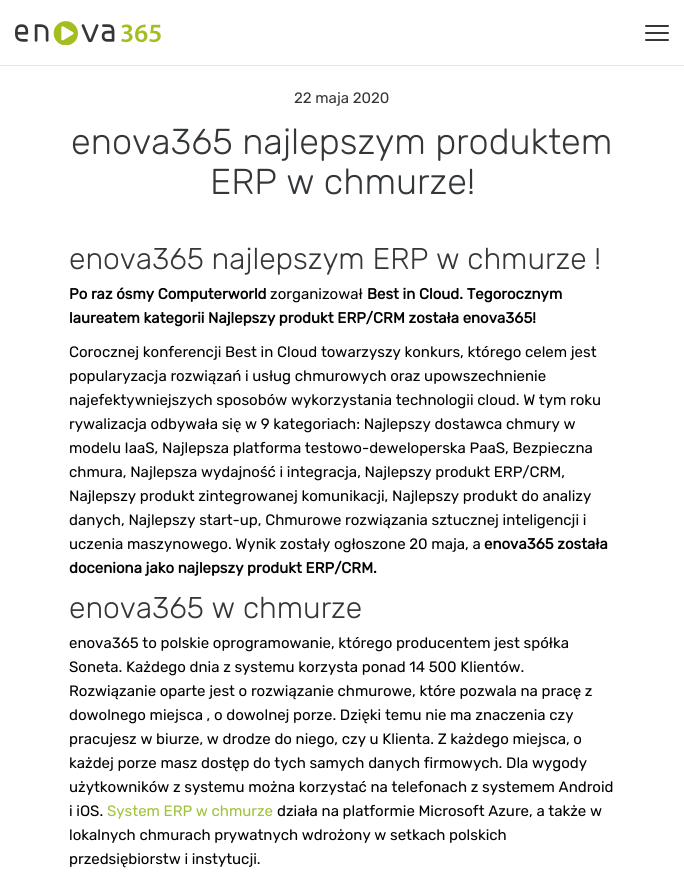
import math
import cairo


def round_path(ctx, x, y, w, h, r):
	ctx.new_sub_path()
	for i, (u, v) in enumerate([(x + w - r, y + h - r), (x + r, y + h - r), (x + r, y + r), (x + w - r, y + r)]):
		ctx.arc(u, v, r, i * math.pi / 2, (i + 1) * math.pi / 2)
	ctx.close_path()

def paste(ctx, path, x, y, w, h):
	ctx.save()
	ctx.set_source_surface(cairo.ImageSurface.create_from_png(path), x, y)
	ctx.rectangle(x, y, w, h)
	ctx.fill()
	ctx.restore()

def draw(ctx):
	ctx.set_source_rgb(1, 1, 1)
	ctx.paint()
	ctx.set_source_rgb(0.902, 0.902, 0.902)
	ctx.rectangle(0, 65, 684, 1)
	ctx.fill()
	paste(ctx, 'media/1.png', 15, 21, 146, 24)
	ctx.set_source_rgb(0.204, 0.216, 0.224)
	round_path(ctx, 645, 25, 24, 2, 1)
	ctx.fill()
	round_path(ctx, 645, 32, 24, 2, 1)
	ctx.fill()
	round_path(ctx, 645, 39, 24, 2, 1)
	ctx.fill()
	ctx.select_font_face('Rubik')
	ctx.set_font_size(15)
	ctx.move_to(294, 103)
	ctx.show_text('22 maja 2020')
	ctx.select_font_face('Rubik Light')
	ctx.set_font_size(36)
	ctx.move_to(71, 154)
	ctx.show_text('enova365 najlepszym produktem')
	ctx.move_to(210, 194)
	ctx.show_text('ERP w chmurze!')
	ctx.set_font_size(30)
	ctx.move_to(69, 269)
	ctx.show_text('enova365 najlepszym ERP w chmurze !')
	ctx.select_font_face('Rubik', cairo.FONT_SLANT_NORMAL, cairo.FONT_WEIGHT_BOLD)
	ctx.set_font_size(15)
	ctx.set_source_rgb(0, 0, 0)
	ctx.move_to(69, 299)
	ctx.show_text('Po raz ósmy Computerworld')
	ctx.select_font_face('Rubik')
	ctx.move_to(270, 299)
	ctx.show_text('zorganizował')
	ctx.select_font_face('Rubik', cairo.FONT_SLANT_NORMAL, cairo.FONT_WEIGHT_BOLD)
	ctx.move_to(367, 299)
	ctx.show_text('Best in Cloud. Tegorocznym')
	ctx.move_to(69, 323)
	ctx.show_text('laureatem kategorii Najlepszy produkt ERP/CRM została enova365!')
	ctx.select_font_face('Rubik')
	for x, y, s in [
		(69, 357, 'Corocznej konferencji Best in Cloud towarzyszy konkurs, którego celem jest'),
		(69, 381, 'popularyzacja rozwiązań i usług chmurowych oraz upowszechnienie'),
		(69, 405, 'najefektywniejszych sposobów wykorzystania technologii cloud. W tym roku'),
		(69, 429, 'rywalizacja odbywała się w 9 kategoriach: Najlepszy dostawca chmury w'),
		(69, 453, 'modelu IaaS, Najlepsza platforma testowo-deweloperska PaaS, Bezpieczna'),
		(69, 477, 'chmura, Najlepsza wydajność i integracja, Najlepszy produkt ERP/CRM,'),
		(69, 501, 'Najlepszy produkt zintegrowanej komunikacji, Najlepszy produkt do analizy'),
		(69, 525, 'danych, Najlepszy start-up, Chmurowe rozwiązania sztucznej inteligencji i'),
		(69, 549, 'uczenia maszynowego. Wynik zostały ogłoszone 20 maja, a'),
	]:
		ctx.move_to(x, y)
		ctx.show_text(s)
	ctx.select_font_face('Rubik', cairo.FONT_SLANT_NORMAL, cairo.FONT_WEIGHT_BOLD)
	ctx.move_to(484, 549)
	ctx.show_text('enova365 została')
	ctx.move_to(69, 573)
	ctx.show_text('doceniona jako najlepszy produkt ERP/CRM.')
	ctx.select_font_face('Rubik Light')
	ctx.set_font_size(30)
	ctx.set_source_rgb(0.204, 0.216, 0.224)
	ctx.move_to(69, 618)
	ctx.show_text('enova365 w chmurze')
	ctx.select_font_face('Rubik')
	ctx.set_font_size(15)
	ctx.set_source_rgb(0, 0, 0)
	for x, y, s in [
		(69, 648, 'enova365 to polskie oprogramowanie, którego producentem jest spółka'),
		(69, 672, 'Soneta. Każdego dnia z systemu korzysta ponad 14 500 Klientów.'),
		(69, 696, 'Rozwiązanie oparte jest o rozwiązanie chmurowe, które pozwala na pracę z'),
		(69, 720, 'dowolnego miejsca , o dowolnej porze. Dzięki temu nie ma znaczenia czy'),
		(69, 744, 'pracujesz w biurze, w drodze do niego, czy u Klienta. Z każdego miejsca, o'),
		(69, 768, 'każdej porze masz dostęp do tych samych danych firmowych. Dla wygody'),
		(69, 792, 'użytkowników z systemu można korzystać na telefonach z systemem Android'),
		(69, 816, 'i iOS.'),
	]:
		ctx.move_to(x, y)
		ctx.show_text(s)
	ctx.set_source_rgb(0.624, 0.761, 0.227)
	ctx.move_to(107, 816)
	ctx.show_text('System ERP w chmurze')
	ctx.set_source_rgb(0, 0, 0)
	for x, y, s in [
		(277, 816, 'działa na platformie Microsoft Azure, a także w'),
		(69, 840, 'lokalnych chmurach prywatnych wdrożony w setkach polskich'),
		(69, 864, 'przedsiębiorstw i instytucji.'),
	]:
		ctx.move_to(x, y)
		ctx.show_text(s)


surface = cairo.ImageSurface(cairo.FORMAT_RGB24, 684, 877)
ctx = cairo.Context(surface)
options = cairo.FontOptions()
options.set_hint_metrics(cairo.HINT_METRICS_OFF)
options.set_hint_style(cairo.HINT_STYLE_NONE)
ctx.set_font_options(options)
ctx.set_miter_limit(4)
draw(ctx)
surface.write_to_png('image.png')
